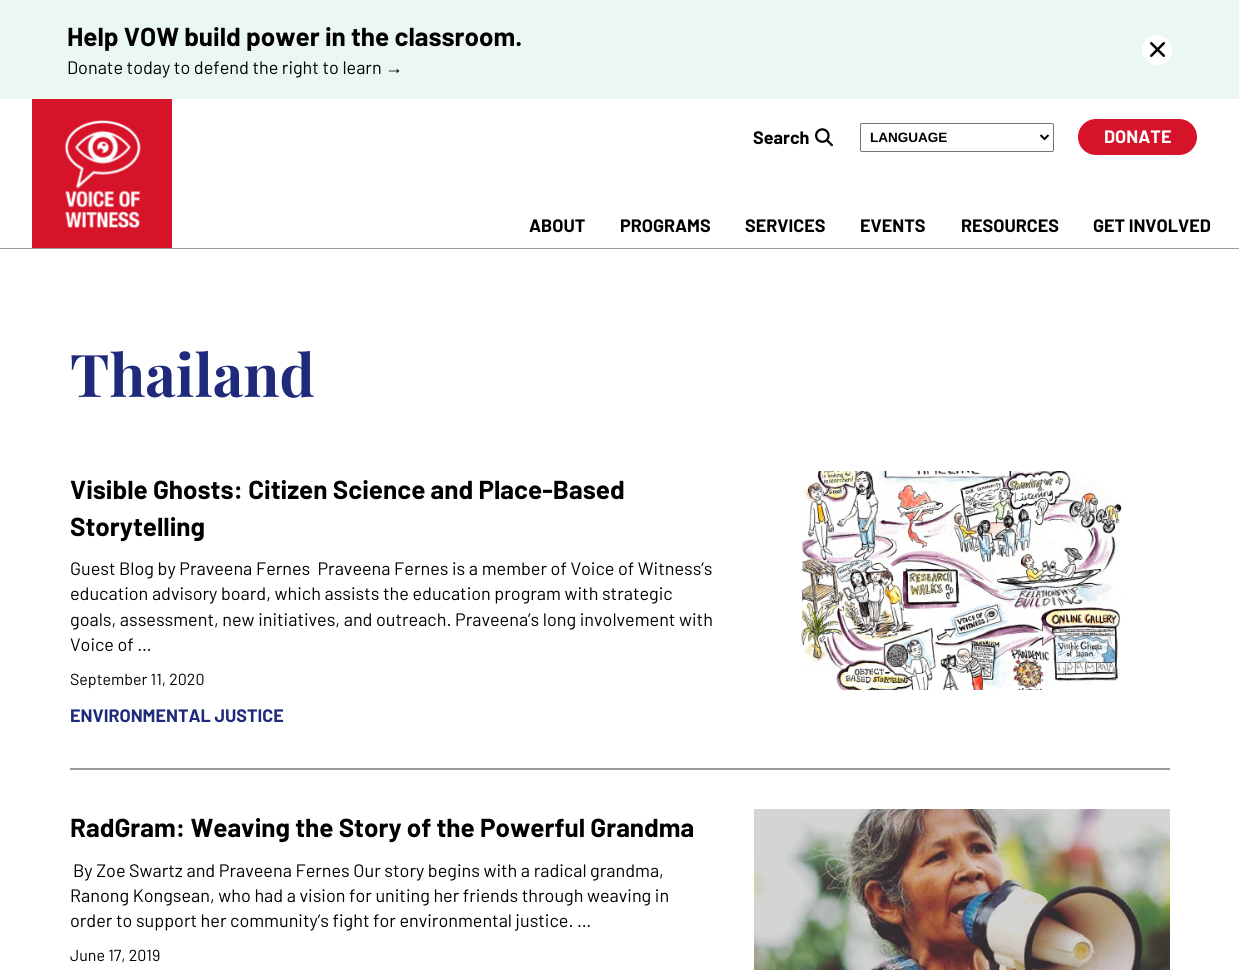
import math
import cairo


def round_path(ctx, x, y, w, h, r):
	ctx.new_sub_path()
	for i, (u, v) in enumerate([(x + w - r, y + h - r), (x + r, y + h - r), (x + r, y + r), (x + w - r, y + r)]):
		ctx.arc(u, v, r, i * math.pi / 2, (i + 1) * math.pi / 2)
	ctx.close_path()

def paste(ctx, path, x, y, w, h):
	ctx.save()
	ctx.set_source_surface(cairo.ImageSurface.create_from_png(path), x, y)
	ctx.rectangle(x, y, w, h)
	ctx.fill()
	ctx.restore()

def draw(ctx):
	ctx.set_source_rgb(1, 1, 1)
	ctx.paint()
	ctx.set_source_rgb(0.918, 0.965, 0.945)
	ctx.rectangle(0, 0, 1239, 99)
	ctx.fill()
	ctx.select_font_face('Barlow', cairo.FONT_SLANT_NORMAL, cairo.FONT_WEIGHT_BOLD)
	ctx.set_font_size(26)
	ctx.set_source_rgb(0, 0, 0)
	ctx.move_to(67, 46)
	ctx.show_text('Help VOW build power in the classroom.')
	ctx.select_font_face('Barlow')
	ctx.set_font_size(18)
	ctx.move_to(67, 74)
	ctx.show_text('Donate today to defend the right to learn')
	ctx.select_font_face('Liberation Sans')
	ctx.move_to(385, 74)
	ctx.show_text('→')
	ctx.set_source_rgb(1, 1, 1)
	ctx.new_path()
	ctx.arc(1157, 50, 15, 0, 2 * math.pi)
	ctx.fill()
	paste(ctx, 'media/1.png', 1150, 42, 15, 15)
	ctx.set_source_rgb(0.6, 0.608, 0.62)
	ctx.rectangle(0, 248, 1239, 1)
	ctx.fill()
	ctx.set_source_rgb(0.839, 0.075, 0.161)
	ctx.rectangle(32, 99, 140, 149)
	ctx.fill()
	paste(ctx, 'media/2.png', 64, 119, 77, 110)
	ctx.select_font_face('Barlow', cairo.FONT_SLANT_NORMAL, cairo.FONT_WEIGHT_BOLD)
	ctx.set_source_rgb(0, 0, 0)
	ctx.move_to(753, 144)
	ctx.show_text('Search')
	paste(ctx, 'media/3.png', 815, 128, 18, 19)
	round_path(ctx, 860.5, 123.5, 193, 28, 1.5)
	ctx.set_source_rgb(0.463, 0.463, 0.463)
	ctx.set_line_width(1)
	ctx.stroke()
	ctx.new_path()
	ctx.move_to(1040.5, 135)
	ctx.line_to(1044.5, 139)
	ctx.line_to(1048.5, 135)
	ctx.set_source_rgb(0, 0, 0)
	ctx.set_line_width(2)
	ctx.stroke()
	ctx.select_font_face('Liberation Sans', cairo.FONT_SLANT_NORMAL, cairo.FONT_WEIGHT_BOLD)
	ctx.set_font_size(13.5)
	ctx.move_to(870, 142)
	ctx.show_text('LANGUAGE')
	ctx.set_source_rgb(0.839, 0.075, 0.161)
	round_path(ctx, 1079, 120, 117, 34, 17)
	ctx.fill_preserve()
	ctx.stroke()
	ctx.select_font_face('Barlow', cairo.FONT_SLANT_NORMAL, cairo.FONT_WEIGHT_BOLD)
	ctx.set_font_size(18)
	ctx.set_source_rgb(1, 1, 1)
	ctx.move_to(1104, 143)
	ctx.show_text('DONATE')
	ctx.set_source_rgb(0, 0, 0)
	for x, y, s in [
		(529, 232, 'ABOUT'),
		(620, 232, 'PROGRAMS'),
		(745, 232, 'SERVICES'),
		(860, 232, 'EVENTS'),
		(961, 232, 'RESOURCES'),
		(1093, 232, 'GET INVOLVED'),
	]:
		ctx.move_to(x, y)
		ctx.show_text(s)
	ctx.select_font_face('Playfair Display', cairo.FONT_SLANT_NORMAL, cairo.FONT_WEIGHT_BOLD)
	ctx.set_font_size(59)
	ctx.set_source_rgb(0.122, 0.165, 0.482)
	ctx.move_to(70, 397)
	ctx.show_text('Thailand')
	ctx.select_font_face('Barlow', cairo.FONT_SLANT_NORMAL, cairo.FONT_WEIGHT_BOLD)
	ctx.set_font_size(26)
	ctx.set_source_rgb(0, 0, 0)
	ctx.move_to(70, 499)
	ctx.show_text('Visible Ghosts: Citizen Science and Place-Based')
	ctx.move_to(70, 536)
	ctx.show_text('Storytelling')
	ctx.select_font_face('Barlow')
	ctx.set_font_size(18)
	for x, y, s in [
		(70, 575, 'Guest Blog by Praveena Fernes  Praveena Fernes is a member of Voice of Witness’s'),
		(70, 600, 'education advisory board, which assists the education program with strategic'),
		(70, 626, 'goals, assessment, new initiatives, and outreach. Praveena’s long involvement with'),
		(70, 651, 'Voice of …'),
	]:
		ctx.move_to(x, y)
		ctx.show_text(s)
	ctx.set_font_size(16)
	ctx.move_to(70, 685)
	ctx.show_text('September 11, 2020')
	ctx.select_font_face('Barlow', cairo.FONT_SLANT_NORMAL, cairo.FONT_WEIGHT_BOLD)
	ctx.set_font_size(18)
	ctx.set_source_rgb(0.122, 0.165, 0.482)
	ctx.move_to(70, 722)
	ctx.show_text('ENVIRONMENTAL JUSTICE')
	paste(ctx, 'media/4.png', 801, 471, 321, 219)
	ctx.set_source_rgb(0.6, 0.608, 0.62)
	ctx.rectangle(70, 768, 1100, 2)
	ctx.fill()
	ctx.set_font_size(26)
	ctx.set_source_rgb(0, 0, 0)
	ctx.move_to(70, 837)
	ctx.show_text('RadGram: Weaving the Story of the Powerful Grandma')
	ctx.select_font_face('Barlow')
	ctx.set_font_size(18)
	for x, y, s in [
		(73, 877, 'By Zoe Swartz and Praveena Fernes Our story begins with a radical grandma,'),
		(70, 902, 'Ranong Kongsean, who had a vision for uniting her friends through weaving in'),
		(70, 927, 'order to support her community’s fight for environmental justice. …'),
	]:
		ctx.move_to(x, y)
		ctx.show_text(s)
	ctx.set_font_size(16)
	ctx.move_to(70, 961)
	ctx.show_text('June 17, 2019')
	paste(ctx, 'media/5.png', 754, 809, 416, 161)


surface = cairo.ImageSurface(cairo.FORMAT_RGB24, 1239, 970)
ctx = cairo.Context(surface)
options = cairo.FontOptions()
options.set_hint_metrics(cairo.HINT_METRICS_OFF)
options.set_hint_style(cairo.HINT_STYLE_NONE)
ctx.set_font_options(options)
ctx.set_miter_limit(4)
draw(ctx)
surface.write_to_png('image.png')
